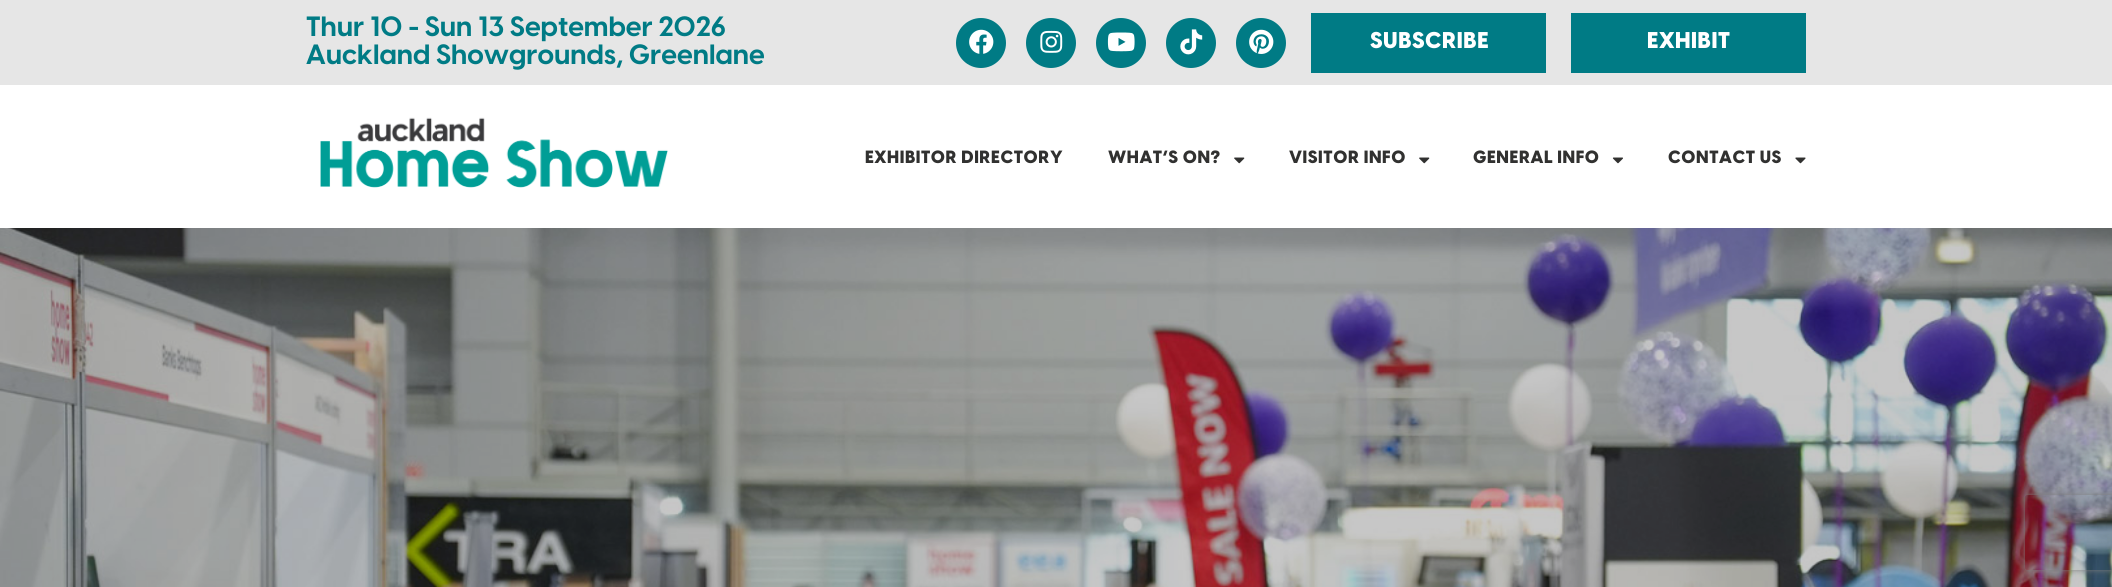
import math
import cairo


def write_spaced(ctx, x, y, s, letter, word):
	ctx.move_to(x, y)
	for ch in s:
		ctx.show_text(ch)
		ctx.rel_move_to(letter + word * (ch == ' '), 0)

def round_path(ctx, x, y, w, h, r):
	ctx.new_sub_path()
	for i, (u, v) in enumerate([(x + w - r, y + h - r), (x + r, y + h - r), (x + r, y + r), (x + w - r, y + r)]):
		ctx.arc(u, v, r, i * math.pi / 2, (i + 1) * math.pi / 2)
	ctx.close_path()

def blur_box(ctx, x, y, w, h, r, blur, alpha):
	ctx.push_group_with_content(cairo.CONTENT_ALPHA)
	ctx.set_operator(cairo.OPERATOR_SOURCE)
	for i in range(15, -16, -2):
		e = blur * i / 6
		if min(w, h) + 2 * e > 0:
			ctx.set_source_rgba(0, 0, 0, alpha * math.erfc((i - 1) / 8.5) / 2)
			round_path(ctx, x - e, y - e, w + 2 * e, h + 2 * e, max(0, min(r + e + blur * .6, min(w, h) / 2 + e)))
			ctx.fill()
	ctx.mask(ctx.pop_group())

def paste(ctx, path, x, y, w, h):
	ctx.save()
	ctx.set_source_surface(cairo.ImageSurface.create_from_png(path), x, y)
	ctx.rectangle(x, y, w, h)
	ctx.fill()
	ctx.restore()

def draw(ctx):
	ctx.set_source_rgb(1, 1, 1)
	ctx.paint()
	ctx.set_source_rgba(0.251, 0.251, 0.255, 0.13)
	ctx.rectangle(0, 0, 2112, 85)
	ctx.fill()
	ctx.select_font_face('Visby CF', cairo.FONT_SLANT_NORMAL, cairo.FONT_WEIGHT_BOLD)
	ctx.set_font_size(27.5)
	ctx.set_source_rgb(0, 0.482, 0.522)
	ctx.move_to(306, 36)
	ctx.show_text('Thur 10 - Sun 13 September 2026')
	ctx.move_to(306, 64)
	ctx.show_text('Auckland Showgrounds, Greenlane')
	ctx.new_path()
	ctx.arc(981, 43, 25, 0, 2 * math.pi)
	ctx.fill()
	paste(ctx, 'media/1.png', 969, 29, 25, 25)
	ctx.arc(1051, 43, 25, 0, 2 * math.pi)
	ctx.fill()
	paste(ctx, 'media/2.png', 1040, 30, 23, 23)
	ctx.arc(1121, 43, 25, 0, 2 * math.pi)
	ctx.fill()
	paste(ctx, 'media/3.png', 1107, 32, 28, 20)
	ctx.arc(1191, 43, 25, 0, 2 * math.pi)
	ctx.fill()
	paste(ctx, 'media/4.png', 1180, 29, 23, 26)
	ctx.arc(1261, 43, 25, 0, 2 * math.pi)
	ctx.fill()
	paste(ctx, 'media/5.png', 1249, 29, 25, 25)
	ctx.rectangle(1311, 13, 235, 60)
	ctx.fill()
	ctx.select_font_face('Visby CF Black')
	ctx.set_font_size(22.5)
	ctx.set_source_rgb(1, 1, 1)
	write_spaced(ctx, 1370, 48, 'SUBSCRIBE', 0.6, 0)
	ctx.set_source_rgb(0, 0.482, 0.522)
	ctx.rectangle(1571, 13, 235, 60)
	ctx.fill()
	ctx.set_source_rgb(1, 1, 1)
	write_spaced(ctx, 1647, 48, 'EXHIBIT', 0.6, 0)
	paste(ctx, 'media/6.png', 320, 117, 348, 71)
	ctx.set_font_size(17.5)
	ctx.set_source_rgb(0.192, 0.192, 0.188)
	write_spaced(ctx, 865, 163, 'EXHIBITOR DIRECTORY', 0.6, 0)
	write_spaced(ctx, 1108, 163, 'WHAT’S ON?', 0.6, 0)
	paste(ctx, 'media/7.png', 1234, 157, 11, 7)
	write_spaced(ctx, 1289, 163, 'VISITOR INFO', 0.6, 0)
	paste(ctx, 'media/7.png', 1419, 157, 11, 7)
	write_spaced(ctx, 1473, 163, 'GENERAL INFO', 0.6, 0)
	paste(ctx, 'media/8.png', 1612, 157, 11, 7)
	write_spaced(ctx, 1668, 163, 'CONTACT US', 0.6, 0)
	paste(ctx, 'media/9.png', 1795, 157, 11, 7)
	paste(ctx, 'media/10.png', 0, 228, 2112, 359)
	ctx.save()
	ctx.set_fill_rule(cairo.FILL_RULE_EVEN_ODD)
	ctx.new_path()
	ctx.move_to(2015, 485)
	ctx.line_to(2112, 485)
	ctx.line_to(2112, 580)
	ctx.line_to(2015, 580)
	ctx.close_path()
	ctx.move_to(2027.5, 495)
	ctx.line_to(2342.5, 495)
	ctx.curve_to(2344, 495, 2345, 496, 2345, 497.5)
	ctx.line_to(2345, 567.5)
	ctx.curve_to(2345, 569, 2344, 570, 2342.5, 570)
	ctx.line_to(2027.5, 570)
	ctx.curve_to(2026, 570, 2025, 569, 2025, 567.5)
	ctx.line_to(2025, 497.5)
	ctx.curve_to(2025, 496, 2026, 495, 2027.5, 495)
	ctx.close_path()
	ctx.clip()
	ctx.set_source_rgb(0.502, 0.502, 0.502)
	blur_box(ctx, 2025, 495, 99, 75, 2.5, 3, 1)
	ctx.restore()


surface = cairo.ImageSurface(cairo.FORMAT_RGB24, 2112, 587)
ctx = cairo.Context(surface)
options = cairo.FontOptions()
options.set_hint_metrics(cairo.HINT_METRICS_OFF)
options.set_hint_style(cairo.HINT_STYLE_NONE)
ctx.set_font_options(options)
ctx.set_miter_limit(4)
draw(ctx)
surface.write_to_png('image.png')
